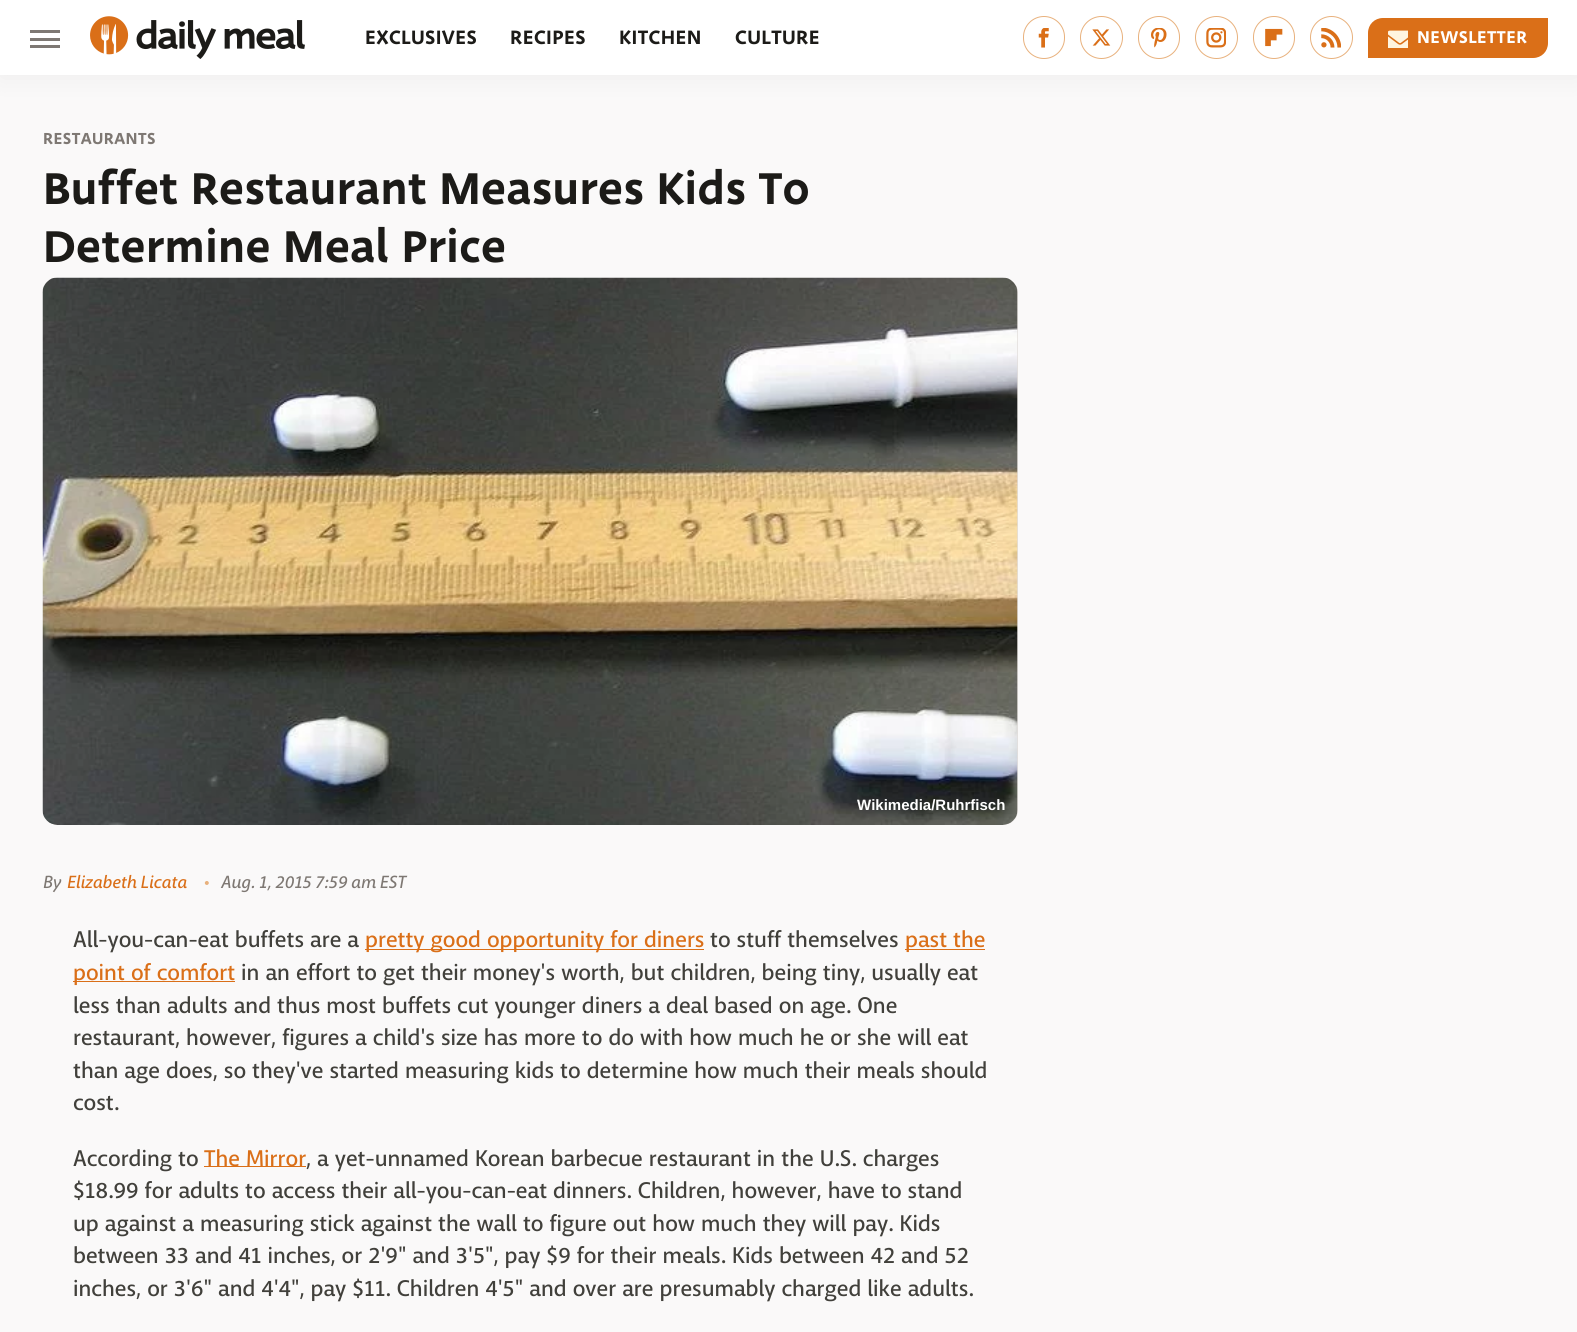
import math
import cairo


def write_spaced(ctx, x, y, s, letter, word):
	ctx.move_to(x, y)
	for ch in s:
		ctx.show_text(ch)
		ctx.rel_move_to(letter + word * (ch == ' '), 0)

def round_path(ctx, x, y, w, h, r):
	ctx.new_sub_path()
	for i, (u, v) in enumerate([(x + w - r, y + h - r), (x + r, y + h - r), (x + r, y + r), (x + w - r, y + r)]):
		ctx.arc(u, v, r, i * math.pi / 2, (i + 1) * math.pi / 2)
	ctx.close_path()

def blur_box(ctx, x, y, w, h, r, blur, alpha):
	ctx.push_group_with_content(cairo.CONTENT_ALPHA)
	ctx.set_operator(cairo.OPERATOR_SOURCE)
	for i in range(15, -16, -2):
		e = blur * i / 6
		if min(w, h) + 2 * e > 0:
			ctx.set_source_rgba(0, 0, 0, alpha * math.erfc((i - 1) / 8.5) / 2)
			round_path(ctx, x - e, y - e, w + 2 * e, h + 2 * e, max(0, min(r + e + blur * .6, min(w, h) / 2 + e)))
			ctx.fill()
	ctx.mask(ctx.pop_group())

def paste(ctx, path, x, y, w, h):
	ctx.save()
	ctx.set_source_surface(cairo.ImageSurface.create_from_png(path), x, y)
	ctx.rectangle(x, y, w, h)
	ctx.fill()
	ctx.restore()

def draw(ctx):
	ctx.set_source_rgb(0.98, 0.976, 0.976)
	ctx.paint()
	ctx.set_source_rgb(0, 0, 0)
	blur_box(ctx, 0, 3, 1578, 75, 0, 12.5, 0.05)
	ctx.set_source_rgb(1, 1, 1)
	ctx.rectangle(0, 0, 1577, 75)
	ctx.fill()
	ctx.set_source_rgb(0.494, 0.471, 0.451)
	ctx.rectangle(30, 30, 30, 3)
	ctx.rectangle(30, 38, 30, 3)
	ctx.rectangle(30, 45, 30, 3)
	ctx.fill()
	paste(ctx, 'media/1.png', 90, 16, 215, 43)
	ctx.select_font_face('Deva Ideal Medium')
	ctx.set_font_size(21.25)
	ctx.set_source_rgb(0.11, 0.106, 0.094)
	for x, y, s in [
		(365, 44, 'EXCLUSIVES'),
		(510, 44, 'RECIPES'),
		(619, 44, 'KITCHEN'),
		(735, 44, 'CULTURE'),
	]:
		write_spaced(ctx, x, y, s, 0.4, 0)
	round_path(ctx, 1023.5, 16.5, 41, 42, 20.5)
	ctx.set_source_rgb(0.91, 0.694, 0.49)
	ctx.set_line_width(1)
	ctx.stroke()
	paste(ctx, 'media/2.png', 1038, 28, 11, 20)
	ctx.arc(1101.5, 37.5, 21, 0, 2 * math.pi)
	ctx.stroke()
	paste(ctx, 'media/3.png', 1092, 29, 19, 17)
	round_path(ctx, 1138.5, 16.5, 41, 42, 20.5)
	ctx.stroke()
	paste(ctx, 'media/4.png', 1151, 28, 16, 20)
	ctx.arc(1216.5, 37.5, 21, 0, 2 * math.pi)
	ctx.stroke()
	paste(ctx, 'media/5.png', 1206, 28, 20, 20)
	round_path(ctx, 1253.5, 16.5, 41, 42, 20.5)
	ctx.stroke()
	paste(ctx, 'media/6.png', 1265, 28, 18, 19)
	ctx.arc(1331.5, 37.5, 21, 0, 2 * math.pi)
	ctx.stroke()
	paste(ctx, 'media/7.png', 1321, 28, 20, 20)
	ctx.set_source_rgb(0.855, 0.435, 0.094)
	ctx.new_path()
	ctx.move_to(1383, 18)
	ctx.line_to(1548, 18)
	ctx.line_to(1548, 43)
	ctx.curve_to(1548, 51.5, 1541.5, 58, 1533, 58)
	ctx.line_to(1368, 58)
	ctx.line_to(1368, 33)
	ctx.curve_to(1368, 24.5, 1374.5, 18, 1383, 18)
	ctx.close_path()
	ctx.fill()
	paste(ctx, 'media/8.png', 1388, 30, 20, 18)
	ctx.set_font_size(18.75)
	ctx.set_source_rgb(1, 1, 1)
	write_spaced(ctx, 1417, 43, 'NEWSLETTER', 0.4, 0)
	ctx.set_font_size(17.5)
	ctx.set_source_rgb(0.494, 0.471, 0.451)
	write_spaced(ctx, 43, 144, 'RESTAURANTS', 0.4, 0)
	ctx.set_font_size(48.75)
	ctx.set_source_rgb(0.11, 0.106, 0.094)
	ctx.move_to(43, 204)
	ctx.show_text('Buffet Restaurant Measures Kids To')
	ctx.move_to(43, 262)
	ctx.show_text('Determine Meal Price')
	ctx.set_source_rgb(0.886, 0.867, 0.859)
	round_path(ctx, 43, 278, 975, 547, 15)
	ctx.fill()
	paste(ctx, 'media/9.png', 42, 277, 976, 548)
	ctx.select_font_face('Liberation Sans', cairo.FONT_SLANT_NORMAL, cairo.FONT_WEIGHT_BOLD)
	ctx.set_font_size(15)
	ctx.set_source_rgb(1, 1, 1)
	ctx.move_to(857, 810)
	ctx.show_text('Wikimedia/Ruhrfisch')
	ctx.select_font_face('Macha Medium')
	ctx.set_font_size(17.5)
	ctx.set_source_rgb(0.494, 0.471, 0.451)
	write_spaced(ctx, 43, 888, 'By', 0.1, 0)
	ctx.set_source_rgb(0.855, 0.435, 0.094)
	write_spaced(ctx, 67, 888, 'Elizabeth Licata', 0.1, 0)
	ctx.set_font_size(18.75)
	ctx.set_source_rgb(0.91, 0.694, 0.49)
	write_spaced(ctx, 204, 888, '•', 0.1, 0)
	ctx.set_font_size(17.5)
	ctx.set_source_rgb(0.494, 0.471, 0.451)
	write_spaced(ctx, 221, 888, 'Aug. 1, 2015 7:59 am EST', 0.1, 0)
	ctx.select_font_face('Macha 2 Medium')
	ctx.set_font_size(22.5)
	ctx.set_source_rgb(0.255, 0.251, 0.231)
	ctx.move_to(73, 947)
	ctx.show_text('All-you-can-eat buffets are a')
	ctx.set_source_rgb(0.855, 0.435, 0.094)
	ctx.rectangle(365, 949, 339, 1)
	ctx.fill()
	ctx.move_to(365, 947)
	ctx.show_text('pretty good opportunity for diners')
	ctx.set_source_rgb(0.255, 0.251, 0.231)
	ctx.move_to(710, 947)
	ctx.show_text('to stuff themselves')
	ctx.set_source_rgb(0.855, 0.435, 0.094)
	ctx.rectangle(905, 949, 80, 1)
	ctx.fill()
	ctx.move_to(905, 947)
	ctx.show_text('past the')
	ctx.rectangle(73, 981, 162, 1)
	ctx.fill()
	ctx.move_to(73, 980)
	ctx.show_text('point of comfort')
	ctx.set_source_rgb(0.255, 0.251, 0.231)
	for x, y, s in [
		(241, 980, 'in an effort to get their money\'s worth, but children, being tiny, usually eat'),
		(73, 1013, 'less than adults and thus most buffets cut younger diners a deal based on age. One'),
		(73, 1045, 'restaurant, however, figures a child\'s size has more to do with how much he or she will eat'),
		(73, 1078, 'than age does, so they\'ve started measuring kids to determine how much their meals should'),
		(73, 1110, 'cost.'),
		(73, 1166, 'According to'),
	]:
		ctx.move_to(x, y)
		ctx.show_text(s)
	ctx.set_source_rgb(0.855, 0.435, 0.094)
	ctx.rectangle(204, 1166, 102, 1)
	ctx.fill()
	ctx.move_to(204, 1166)
	ctx.show_text('The Mirror')
	ctx.set_source_rgb(0.255, 0.251, 0.231)
	for x, y, s in [
		(306, 1166, ', a yet-unnamed Korean barbecue restaurant in the U.S. charges'),
		(73, 1198, '$18.99 for adults to access their all-you-can-eat dinners. Children, however, have to stand'),
		(73, 1231, 'up against a measuring stick against the wall to figure out how much they will pay. Kids'),
		(73, 1263, 'between 33 and 41 inches, or 2\'9" and 3\'5", pay $9 for their meals. Kids between 42 and 52'),
		(73, 1296, 'inches, or 3\'6" and 4\'4", pay $11. Children 4\'5" and over are presumably charged like adults.'),
	]:
		ctx.move_to(x, y)
		ctx.show_text(s)


surface = cairo.ImageSurface(cairo.FORMAT_RGB24, 1577, 1332)
ctx = cairo.Context(surface)
options = cairo.FontOptions()
options.set_hint_metrics(cairo.HINT_METRICS_OFF)
options.set_hint_style(cairo.HINT_STYLE_NONE)
ctx.set_font_options(options)
ctx.set_miter_limit(4)
draw(ctx)
surface.write_to_png('image.png')
